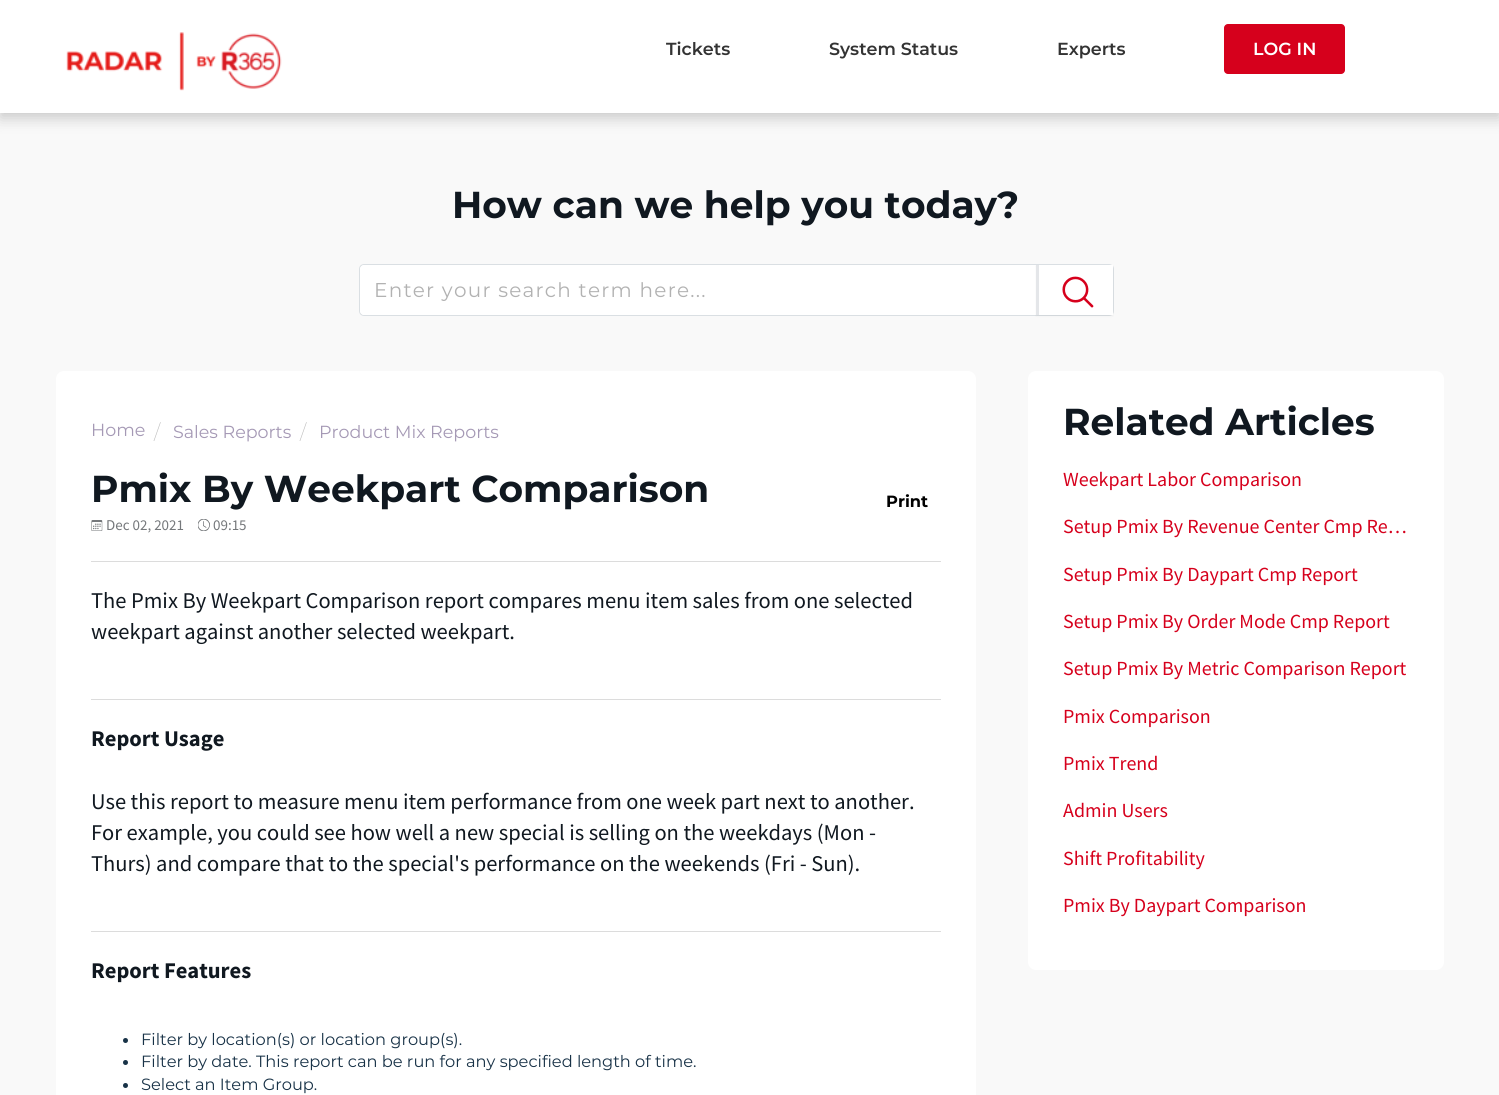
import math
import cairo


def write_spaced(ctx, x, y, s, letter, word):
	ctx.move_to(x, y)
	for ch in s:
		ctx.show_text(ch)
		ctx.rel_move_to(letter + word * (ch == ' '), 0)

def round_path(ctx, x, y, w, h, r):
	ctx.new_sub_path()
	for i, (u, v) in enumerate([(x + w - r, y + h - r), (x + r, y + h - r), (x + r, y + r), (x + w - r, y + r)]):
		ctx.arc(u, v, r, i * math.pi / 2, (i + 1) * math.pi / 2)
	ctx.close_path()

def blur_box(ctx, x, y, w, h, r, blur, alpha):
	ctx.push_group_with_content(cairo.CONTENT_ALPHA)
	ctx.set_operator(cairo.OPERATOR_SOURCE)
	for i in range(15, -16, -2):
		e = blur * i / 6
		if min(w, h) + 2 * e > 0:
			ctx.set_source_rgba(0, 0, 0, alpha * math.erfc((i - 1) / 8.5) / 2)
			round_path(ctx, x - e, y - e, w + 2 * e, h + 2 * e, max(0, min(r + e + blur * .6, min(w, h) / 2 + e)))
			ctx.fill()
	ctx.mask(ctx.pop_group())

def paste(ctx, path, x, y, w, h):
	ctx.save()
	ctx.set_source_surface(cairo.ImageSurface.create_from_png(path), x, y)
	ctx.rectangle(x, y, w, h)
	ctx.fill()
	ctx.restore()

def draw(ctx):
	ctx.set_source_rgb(0.973, 0.973, 0.973)
	ctx.paint()
	ctx.set_source_rgb(0, 0, 0)
	blur_box(ctx, 0, 5, 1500, 113, 0, 7.5, 0.2)
	ctx.set_source_rgb(1, 1, 1)
	ctx.rectangle(0, 0, 1499, 113)
	ctx.fill()
	paste(ctx, 'media/1.png', 66, 32, 216, 59)
	ctx.select_font_face('Montserrat SemiBold')
	ctx.set_font_size(17.5)
	ctx.set_source_rgb(0.2, 0.2, 0.2)
	for x, y, s in [
		(666, 55, 'Tickets'),
		(829, 55, 'System Status'),
		(1057, 55, 'Experts'),
	]:
		ctx.move_to(x, y)
		ctx.show_text(s)
	ctx.set_source_rgb(0.839, 0, 0.11)
	round_path(ctx, 1224, 24, 121, 50, 4)
	ctx.fill()
	ctx.set_source_rgb(1, 1, 1)
	ctx.move_to(1253, 55)
	ctx.show_text('LOG IN')
	ctx.select_font_face('Montserrat', cairo.FONT_SLANT_NORMAL, cairo.FONT_WEIGHT_BOLD)
	ctx.set_font_size(37.5)
	ctx.set_source_rgb(0.063, 0.094, 0.125)
	ctx.move_to(452, 218)
	ctx.show_text('How can we help you today?')
	ctx.set_source_rgb(1, 1, 1)
	round_path(ctx, 359.5, 264.5, 754, 51, 4.5)
	ctx.fill_preserve()
	ctx.set_source_rgb(0.855, 0.875, 0.89)
	ctx.set_line_width(1)
	ctx.stroke()
	ctx.set_source_rgb(1, 1, 1)
	ctx.new_path()
	ctx.move_to(365, 265)
	ctx.line_to(1066, 265)
	ctx.line_to(1066, 315)
	ctx.line_to(365, 315)
	ctx.curve_to(362, 315, 360, 313, 360, 310)
	ctx.line_to(360, 270)
	ctx.curve_to(360, 267, 362, 265, 365, 265)
	ctx.close_path()
	ctx.fill()
	ctx.select_font_face('Montserrat')
	ctx.set_font_size(20)
	ctx.set_source_rgb(0.698, 0.698, 0.698)
	write_spaced(ctx, 374, 297, 'Enter your search term here...', 1.25, 0)
	ctx.set_source_rgb(0, 0, 0)
	blur_box(ctx, 1036, 266, 77, 50, 0, 1, 0.05)
	ctx.set_source_rgb(1, 1, 1)
	ctx.rectangle(1039, 265, 74, 50)
	ctx.fill()
	ctx.set_source_rgb(0.894, 0.902, 0.914)
	ctx.rectangle(1036, 265, 3, 50)
	ctx.fill()
	paste(ctx, 'media/2.png', 1062, 276, 32, 32)
	ctx.set_source_rgb(1, 1, 1)
	round_path(ctx, 56, 371, 920, 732, 8)
	ctx.fill()
	ctx.set_font_size(17.5)
	ctx.set_source_rgb(0.647, 0.6, 0.71)
	ctx.move_to(91, 436)
	ctx.show_text('Home')
	ctx.select_font_face('Montserrat ExtraLight')
	ctx.set_font_size(20)
	ctx.set_source_rgb(0.733, 0.733, 0.733)
	ctx.move_to(154, 439)
	ctx.show_text('/')
	ctx.select_font_face('Montserrat')
	ctx.set_font_size(17.5)
	ctx.set_source_rgb(0.647, 0.6, 0.71)
	ctx.move_to(173, 438)
	ctx.show_text('Sales Reports')
	ctx.select_font_face('Montserrat ExtraLight')
	ctx.set_font_size(20)
	ctx.set_source_rgb(0.733, 0.733, 0.733)
	ctx.move_to(300, 439)
	ctx.show_text('/')
	ctx.select_font_face('Montserrat')
	ctx.set_font_size(17.5)
	ctx.set_source_rgb(0.647, 0.6, 0.71)
	ctx.move_to(319, 438)
	ctx.show_text('Product Mix Reports')
	ctx.select_font_face('Montserrat', cairo.FONT_SLANT_NORMAL, cairo.FONT_WEIGHT_BOLD)
	ctx.set_font_size(37.5)
	ctx.set_source_rgb(0.063, 0.094, 0.125)
	ctx.move_to(91, 502)
	ctx.show_text('Pmix By Weekpart Comparison')
	ctx.set_font_size(16.25)
	ctx.set_source_rgb(0, 0, 0)
	ctx.move_to(886, 507)
	ctx.show_text('Print')
	paste(ctx, 'media/3.png', 91, 520, 12, 11)
	ctx.select_font_face('Source Sans Pro')
	ctx.set_font_size(15)
	ctx.set_source_rgb(0.459, 0.471, 0.482)
	ctx.move_to(106, 530)
	ctx.show_text('Dec 02, 2021')
	paste(ctx, 'media/4.png', 198, 519, 12, 12)
	ctx.move_to(213, 530)
	ctx.show_text('09:15')
	ctx.set_source_rgb(0.863, 0.863, 0.863)
	ctx.rectangle(91, 561, 850, 1)
	ctx.fill()
	ctx.set_font_size(22.5)
	ctx.set_source_rgb(0.063, 0.094, 0.125)
	ctx.move_to(91, 608)
	ctx.show_text('The Pmix By Weekpart Comparison report compares menu item sales from one selected')
	ctx.move_to(91, 639)
	ctx.show_text('weekpart against another selected weekpart.')
	ctx.set_source_rgb(0.863, 0.863, 0.863)
	ctx.rectangle(91, 699, 850, 1)
	ctx.fill()
	ctx.select_font_face('Source Sans Pro', cairo.FONT_SLANT_NORMAL, cairo.FONT_WEIGHT_BOLD)
	ctx.set_source_rgb(0.063, 0.094, 0.125)
	ctx.move_to(91, 746)
	ctx.show_text('Report Usage')
	ctx.select_font_face('Source Sans Pro')
	for x, y, s in [
		(91, 809, 'Use this report to measure menu item performance from one week part next to another.'),
		(91, 840, 'For example, you could see how well a new special is selling on the weekdays (Mon -'),
		(91, 871, 'Thurs) and compare that to the special\'s performance on the weekends (Fri - Sun).'),
	]:
		ctx.move_to(x, y)
		ctx.show_text(s)
	ctx.set_source_rgb(0.863, 0.863, 0.863)
	ctx.rectangle(91, 931, 850, 1)
	ctx.fill()
	ctx.select_font_face('Source Sans Pro', cairo.FONT_SLANT_NORMAL, cairo.FONT_WEIGHT_BOLD)
	ctx.set_source_rgb(0.063, 0.094, 0.125)
	ctx.move_to(91, 978)
	ctx.show_text('Report Features')
	ctx.set_source_rgb(0.094, 0.196, 0.278)
	ctx.new_path()
	ctx.arc(125.5, 1040.5, 2.5, 0, 2 * math.pi)
	ctx.fill()
	ctx.select_font_face('Montserrat')
	ctx.set_font_size(16.25)
	ctx.move_to(141, 1045)
	ctx.show_text('Filter by location(s) or location group(s).')
	ctx.new_path()
	ctx.arc(125.5, 1062.5, 2.5, 0, 2 * math.pi)
	ctx.fill()
	ctx.move_to(141, 1067)
	ctx.show_text('Filter by date. This report can be run for any specified length of time.')
	ctx.new_path()
	ctx.arc(125.5, 1085.5, 2.5, 0, 2 * math.pi)
	ctx.fill()
	ctx.move_to(141, 1090)
	ctx.show_text('Select an Item Group.')
	ctx.set_source_rgb(1, 1, 1)
	round_path(ctx, 1028, 371, 416, 599, 8)
	ctx.fill()
	ctx.select_font_face('Montserrat', cairo.FONT_SLANT_NORMAL, cairo.FONT_WEIGHT_BOLD)
	ctx.set_font_size(37.5)
	ctx.set_source_rgb(0.063, 0.094, 0.125)
	ctx.move_to(1063, 435)
	ctx.show_text('Related Articles')
	ctx.select_font_face('Source Sans Pro')
	ctx.set_font_size(20)
	ctx.set_source_rgb(0.839, 0, 0.11)
	for x, y, s in [
		(1063, 486, 'Weekpart Labor Comparison'),
		(1063, 533, 'Setup Pmix By Revenue Center Cmp Re…'),
		(1063, 581, 'Setup Pmix By Daypart Cmp Report'),
		(1063, 628, 'Setup Pmix By Order Mode Cmp Report'),
		(1063, 675, 'Setup Pmix By Metric Comparison Report'),
		(1063, 723, 'Pmix Comparison'),
		(1063, 770, 'Pmix Trend'),
		(1063, 817, 'Admin Users'),
		(1063, 865, 'Shift Profitability'),
		(1063, 912, 'Pmix By Daypart Comparison'),
	]:
		ctx.move_to(x, y)
		ctx.show_text(s)


surface = cairo.ImageSurface(cairo.FORMAT_RGB24, 1499, 1095)
ctx = cairo.Context(surface)
options = cairo.FontOptions()
options.set_hint_metrics(cairo.HINT_METRICS_OFF)
options.set_hint_style(cairo.HINT_STYLE_NONE)
ctx.set_font_options(options)
ctx.set_miter_limit(4)
draw(ctx)
surface.write_to_png('image.png')
